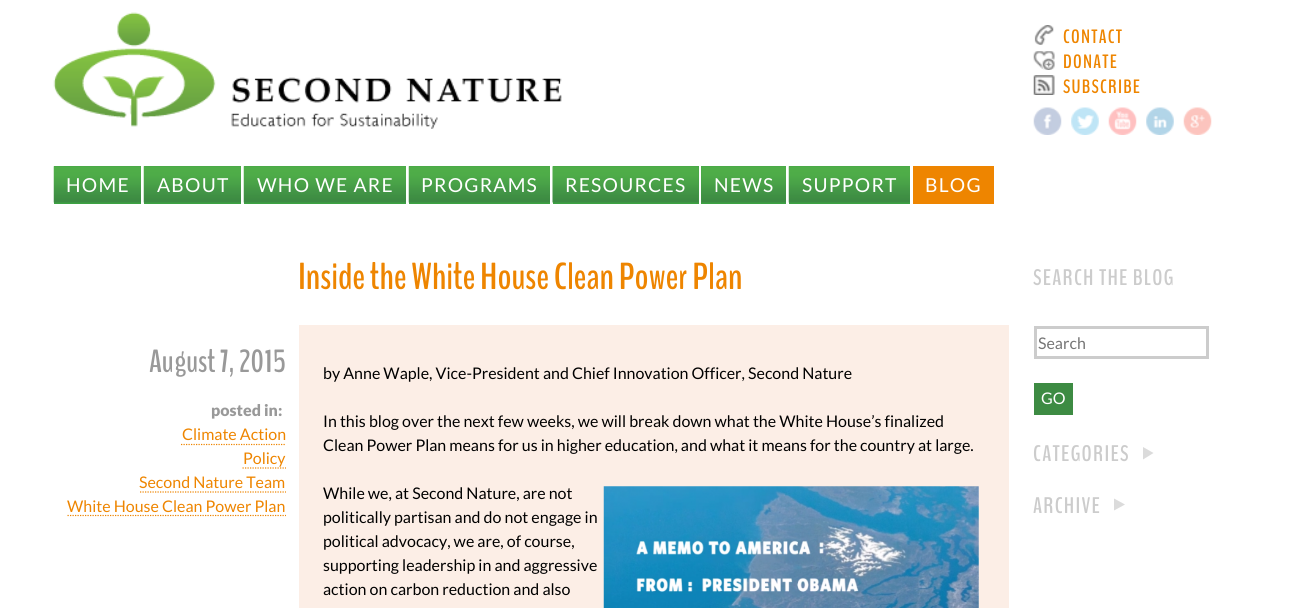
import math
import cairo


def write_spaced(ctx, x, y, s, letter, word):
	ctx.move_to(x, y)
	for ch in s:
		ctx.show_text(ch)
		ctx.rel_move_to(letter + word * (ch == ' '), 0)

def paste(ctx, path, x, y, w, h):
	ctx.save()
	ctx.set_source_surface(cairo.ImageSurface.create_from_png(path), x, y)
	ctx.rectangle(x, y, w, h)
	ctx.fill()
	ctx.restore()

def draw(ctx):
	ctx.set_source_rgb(1, 1, 1)
	ctx.paint()
	paste(ctx, 'media/1.png', 53, 12, 509, 117)
	paste(ctx, 'media/2.png', 1034, 25, 20, 20)
	ctx.select_font_face('BenchNine', cairo.FONT_SLANT_NORMAL, cairo.FONT_WEIGHT_BOLD)
	ctx.set_font_size(19.25)
	ctx.set_source_rgb(0.933, 0.522, 0)
	write_spaced(ctx, 1063, 43, 'CONTACT', 1.25, 0)
	paste(ctx, 'media/3.png', 1033, 51, 22, 19)
	write_spaced(ctx, 1063, 68, 'DONATE', 1.25, 0)
	paste(ctx, 'media/4.png', 1033, 75, 22, 20)
	write_spaced(ctx, 1063, 93, 'SUBSCRIBE', 1.25, 0)
	paste(ctx, 'media/5.png', 1033, 107, 29, 28)
	paste(ctx, 'media/6.png', 1071, 107, 28, 28)
	paste(ctx, 'media/7.png', 1108, 107, 29, 28)
	paste(ctx, 'media/8.png', 1146, 107, 28, 28)
	paste(ctx, 'media/9.png', 1183, 107, 29, 28)
	ctx.set_source_rgb(0.239, 0.635, 0.263)
	ctx.rectangle(54, 166, 87, 38)
	ctx.fill()
	paste(ctx, 'media/10.png', 53, 166, 88, 37)
	ctx.select_font_face('Lato')
	ctx.set_source_rgb(1, 1, 1)
	write_spaced(ctx, 66, 192, 'HOME', 1.25, 0)
	ctx.set_source_rgb(0.239, 0.635, 0.263)
	ctx.rectangle(144, 166, 97, 38)
	ctx.fill()
	paste(ctx, 'media/11.png', 143, 166, 98, 37)
	ctx.set_source_rgb(1, 1, 1)
	write_spaced(ctx, 157, 192, 'ABOUT', 1.25, 0)
	ctx.set_source_rgb(0.239, 0.635, 0.263)
	ctx.rectangle(244, 166, 162, 38)
	ctx.fill()
	paste(ctx, 'media/12.png', 243, 166, 163, 37)
	ctx.set_source_rgb(1, 1, 1)
	write_spaced(ctx, 257, 192, 'WHO WE ARE', 1.25, 0)
	ctx.set_source_rgb(0.239, 0.635, 0.263)
	ctx.rectangle(409, 166, 141, 38)
	ctx.fill()
	paste(ctx, 'media/13.png', 408, 166, 142, 37)
	ctx.set_source_rgb(1, 1, 1)
	write_spaced(ctx, 421, 192, 'PROGRAMS', 1.25, 0)
	ctx.set_source_rgb(0.239, 0.635, 0.263)
	ctx.rectangle(553, 166, 146, 38)
	ctx.fill()
	paste(ctx, 'media/14.png', 552, 166, 147, 37)
	ctx.set_source_rgb(1, 1, 1)
	write_spaced(ctx, 565, 192, 'RESOURCES', 1.25, 0)
	ctx.set_source_rgb(0.239, 0.635, 0.263)
	ctx.rectangle(701, 166, 85, 38)
	ctx.fill()
	paste(ctx, 'media/15.png', 701, 166, 85, 37)
	ctx.set_source_rgb(1, 1, 1)
	write_spaced(ctx, 714, 192, 'NEWS', 1.25, 0)
	ctx.set_source_rgb(0.239, 0.635, 0.263)
	ctx.rectangle(789, 166, 121, 38)
	ctx.fill()
	paste(ctx, 'media/16.png', 788, 166, 122, 37)
	ctx.set_source_rgb(1, 1, 1)
	write_spaced(ctx, 802, 192, 'SUPPORT', 1.25, 0)
	ctx.set_source_rgb(0.933, 0.522, 0)
	ctx.rectangle(913, 166, 81, 38)
	ctx.fill()
	ctx.set_source_rgb(1, 1, 1)
	write_spaced(ctx, 925, 192, 'BLOG', 1.25, 0)
	ctx.select_font_face('BenchNine', cairo.FONT_SLANT_NORMAL, cairo.FONT_WEIGHT_BOLD)
	ctx.set_font_size(37.5)
	ctx.set_source_rgb(0.933, 0.522, 0)
	ctx.move_to(298, 289)
	ctx.show_text('Inside the White House Clean Power Plan')
	ctx.set_font_size(32)
	ctx.set_source_rgb(0.6, 0.6, 0.6)
	ctx.move_to(149, 372)
	ctx.show_text('August 7, 2015')
	ctx.select_font_face('Lato Black')
	ctx.set_font_size(16)
	ctx.move_to(211, 416)
	ctx.show_text('posted in:')
	ctx.select_font_face('Lato')
	ctx.set_source_rgb(0.933, 0.522, 0)
	ctx.move_to(182, 440)
	ctx.show_text('Climate Action')
	ctx.new_path()
	ctx.move_to(181, 444.5)
	ctx.line_to(286, 444.5)
	ctx.set_line_width(1.2)
	ctx.set_dash([1.25, 1.25])
	ctx.stroke()
	ctx.move_to(243, 464)
	ctx.show_text('Policy')
	ctx.new_path()
	ctx.move_to(242.5, 468)
	ctx.line_to(286, 468)
	ctx.stroke()
	ctx.move_to(139, 488)
	ctx.show_text('Second Nature Team')
	ctx.new_path()
	ctx.move_to(140, 492)
	ctx.line_to(286, 492)
	ctx.stroke()
	ctx.move_to(67, 512)
	ctx.show_text('White House Clean Power Plan')
	ctx.new_path()
	ctx.move_to(67.5, 515.5)
	ctx.line_to(286, 515.5)
	ctx.stroke()
	ctx.set_source_rgb(0.988, 0.933, 0.902)
	ctx.rectangle(299, 325, 710, 283)
	ctx.fill()
	ctx.set_source_rgb(0, 0, 0)
	for x, y, s in [
		(323, 379, 'by Anne Waple, Vice-President and Chief Innovation Officer, Second Nature'),
		(323, 427, 'In this blog over the next few weeks, we will break down what the White House’s finalized'),
		(323, 451, 'Clean Power Plan means for us in higher education, and what it means for the country at large.'),
		(323, 499, 'While we, at Second Nature, are not'),
		(323, 523, 'politically partisan and do not engage in'),
		(323, 547, 'political advocacy, we are, of course,'),
		(323, 571, 'supporting leadership in and aggressive'),
		(323, 595, 'action on carbon reduction and also'),
	]:
		ctx.move_to(x, y)
		ctx.show_text(s)
	paste(ctx, 'media/17.png', 603, 486, 376, 122)
	ctx.select_font_face('BenchNine', cairo.FONT_SLANT_NORMAL, cairo.FONT_WEIGHT_BOLD)
	ctx.set_font_size(22.5)
	ctx.set_source_rgb(0.8, 0.8, 0.8)
	write_spaced(ctx, 1033, 285, 'SEARCH THE BLOG', 1.25, 0)
	ctx.rectangle(1035.5, 327.5, 172, 30)
	ctx.set_line_width(3)
	ctx.set_dash([])
	ctx.stroke()
	ctx.select_font_face('Lato')
	ctx.set_font_size(16)
	ctx.set_source_rgb(0.459, 0.459, 0.459)
	ctx.move_to(1038, 349)
	ctx.show_text('Search')
	ctx.set_source_rgb(0.239, 0.545, 0.263)
	ctx.rectangle(1034, 383, 39, 32)
	ctx.fill()
	ctx.set_source_rgb(1, 1, 1)
	ctx.move_to(1041, 404)
	ctx.show_text('GO')
	ctx.select_font_face('BenchNine', cairo.FONT_SLANT_NORMAL, cairo.FONT_WEIGHT_BOLD)
	ctx.set_font_size(22.5)
	ctx.set_source_rgb(0.8, 0.8, 0.8)
	write_spaced(ctx, 1033, 461, 'CATEGORIES', 1.25, 0)
	ctx.set_source_rgb(0.859, 0.859, 0.859)
	ctx.new_path()
	ctx.move_to(1143, 447)
	ctx.line_to(1153.5, 453)
	ctx.line_to(1143, 459.5)
	ctx.close_path()
	ctx.fill()
	ctx.set_source_rgb(0.8, 0.8, 0.8)
	write_spaced(ctx, 1033, 513, 'ARCHIVE', 1.25, 0)
	ctx.set_source_rgb(0.859, 0.859, 0.859)
	ctx.new_path()
	ctx.move_to(1114, 498.5)
	ctx.line_to(1125, 504.5)
	ctx.line_to(1114, 510.5)
	ctx.close_path()
	ctx.fill()


surface = cairo.ImageSurface(cairo.FORMAT_RGB24, 1306, 608)
ctx = cairo.Context(surface)
options = cairo.FontOptions()
options.set_hint_metrics(cairo.HINT_METRICS_OFF)
options.set_hint_style(cairo.HINT_STYLE_NONE)
ctx.set_font_options(options)
ctx.set_miter_limit(4)
draw(ctx)
surface.write_to_png('image.png')
